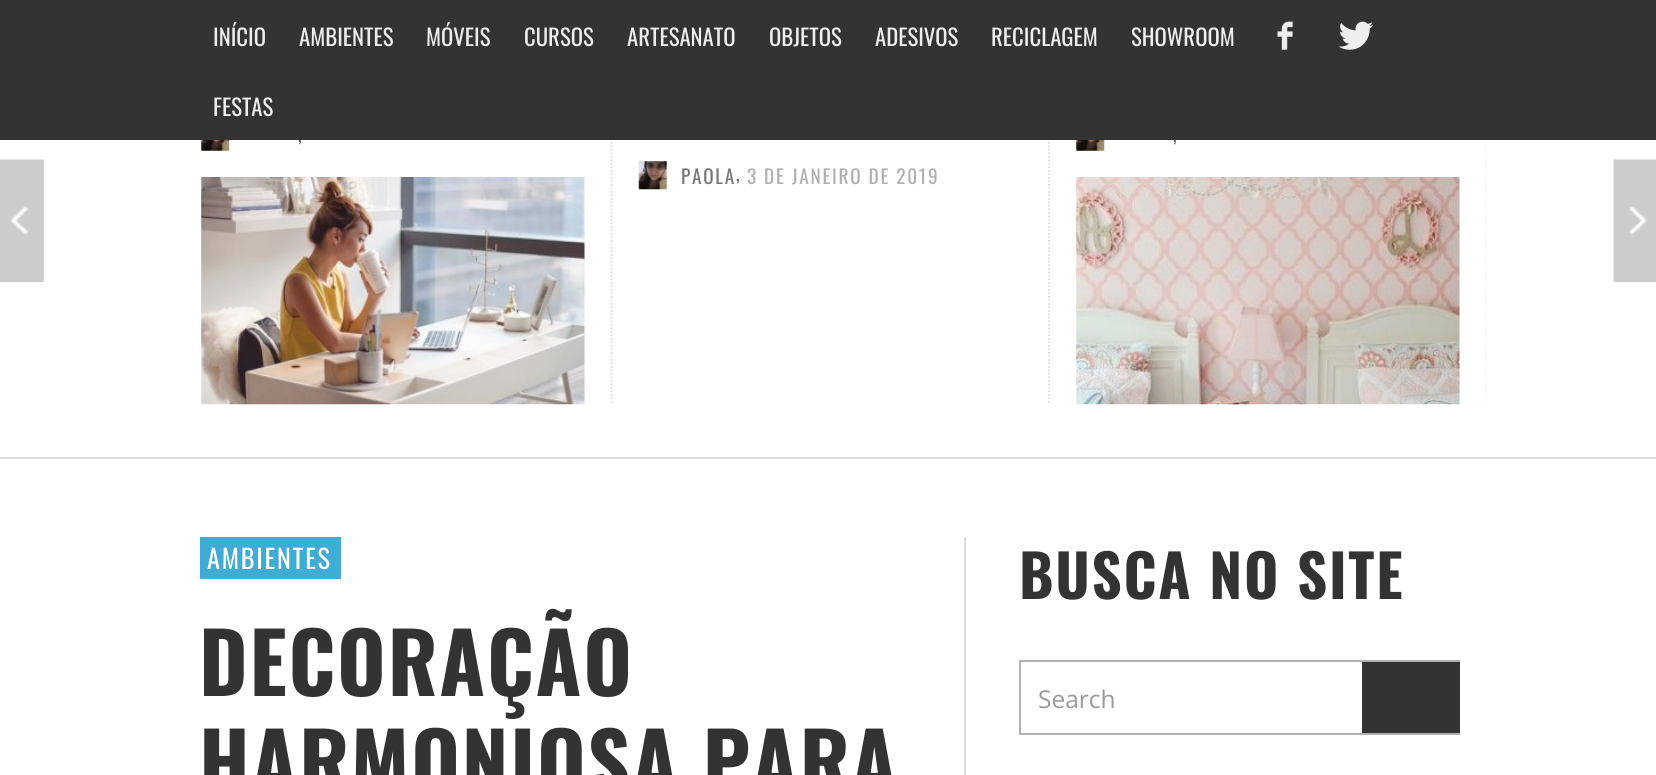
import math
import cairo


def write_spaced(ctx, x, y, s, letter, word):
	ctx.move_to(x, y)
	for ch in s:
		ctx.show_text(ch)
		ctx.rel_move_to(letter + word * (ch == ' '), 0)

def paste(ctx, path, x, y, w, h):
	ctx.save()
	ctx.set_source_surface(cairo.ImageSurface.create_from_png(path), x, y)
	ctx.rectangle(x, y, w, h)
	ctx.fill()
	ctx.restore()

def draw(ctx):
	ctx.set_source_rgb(1, 1, 1)
	ctx.paint()
	ctx.select_font_face('Oswald')
	ctx.set_font_size(19.25)
	ctx.set_source_rgb(0.42, 0.42, 0.42)
	write_spaced(ctx, 298, 142, ',', 1.75, 0)
	ctx.new_path()
	ctx.move_to(1049, 72)
	ctx.line_to(1049, 404)
	ctx.set_source_rgb(0.867, 0.867, 0.867)
	ctx.set_line_width(1.8)
	ctx.set_dash([1.75, 1.75])
	ctx.stroke()
	ctx.set_source_rgb(0.42, 0.42, 0.42)
	write_spaced(ctx, 1173, 142, ',', 1.75, 0)
	ctx.save()
	ctx.rectangle(173, 72, 1313, 332)
	ctx.clip()
	ctx.new_path()
	ctx.move_to(1486.5, 72)
	ctx.line_to(1486.5, 404)
	ctx.set_source_rgb(0.867, 0.867, 0.867)
	ctx.stroke()
	ctx.restore()
	ctx.new_path()
	ctx.move_to(611.5, 72)
	ctx.line_to(611.5, 404)
	ctx.set_source_rgb(0.867, 0.867, 0.867)
	ctx.stroke()
	ctx.set_source_rgb(0.2, 0.2, 0.2)
	ctx.rectangle(0, 0, 1656, 140)
	ctx.fill()
	ctx.set_font_size(22.75)
	ctx.set_source_rgb(0.933, 0.933, 0.933)
	for x, y, s in [
		(213, 46, 'INÍCIO'),
		(299, 46, 'AMBIENTES'),
		(426, 46, 'MÓVEIS'),
		(524, 46, 'CURSOS'),
		(627, 46, 'ARTESANATO'),
		(769, 46, 'OBJETOS'),
		(875, 46, 'ADESIVOS'),
		(991, 46, 'RECICLAGEM'),
		(1131, 46, 'SHOWROOM'),
		(213, 116, 'FESTAS'),
	]:
		ctx.move_to(x, y)
		ctx.show_text(s)
	paste(ctx, 'media/1.png', 1277, 21, 16, 29)
	paste(ctx, 'media/2.png', 1338, 21, 35, 29)
	ctx.set_source_rgb(0.867, 0.867, 0.867)
	ctx.rectangle(0, 457, 1656, 2)
	ctx.fill()
	paste(ctx, 'media/3.png', 0, 159, 44, 123)
	paste(ctx, 'media/4.png', 201, 140, 29, 11)
	paste(ctx, 'media/5.png', 201, 177, 384, 228)
	paste(ctx, 'media/4.png', 1076, 140, 29, 11)
	paste(ctx, 'media/6.png', 1076, 177, 384, 228)
	paste(ctx, 'media/7.png', 638, 161, 29, 29)
	ctx.set_font_size(19.25)
	ctx.set_source_rgb(0.467, 0.467, 0.467)
	write_spaced(ctx, 681, 184, 'PAOLA', 1.75, 0)
	ctx.set_source_rgb(0.42, 0.42, 0.42)
	write_spaced(ctx, 736, 181, ',', 1.75, 0)
	ctx.set_source_rgb(0.69, 0.69, 0.69)
	write_spaced(ctx, 747, 184, '3 DE JANEIRO DE 2019', 1.75, 0)
	paste(ctx, 'media/8.png', 1613, 159, 43, 123)
	ctx.set_source_rgb(0.247, 0.675, 0.839)
	ctx.rectangle(200, 537, 141, 42)
	ctx.fill()
	ctx.set_font_size(26.25)
	ctx.set_source_rgb(1, 1, 1)
	write_spaced(ctx, 207, 569, 'AMBIENTES', 1.75, 0)
	ctx.select_font_face('Oswald', cairo.FONT_SLANT_NORMAL, cairo.FONT_WEIGHT_BOLD)
	ctx.set_font_size(83.25)
	ctx.set_source_rgb(0.2, 0.2, 0.2)
	write_spaced(ctx, 199, 696, 'DECORAÇÃO', 1.75, 0)
	write_spaced(ctx, 199, 796, 'HARMONIOSA PARA', 1.75, 0)
	ctx.set_source_rgb(0.867, 0.867, 0.867)
	ctx.rectangle(964, 537, 2, 238)
	ctx.fill()
	ctx.set_font_size(58.75)
	ctx.set_source_rgb(0.2, 0.2, 0.2)
	write_spaced(ctx, 1019, 599, 'BUSCA NO SITE', 1.75, 0)
	ctx.rectangle(1020, 661, 439, 73)
	ctx.set_source_rgb(0.69, 0.69, 0.69)
	ctx.set_line_width(2)
	ctx.set_dash([])
	ctx.stroke()
	ctx.select_font_face('Open Sans')
	ctx.set_font_size(24.5)
	ctx.set_source_rgb(0.6, 0.6, 0.6)
	ctx.move_to(1038, 708)
	ctx.show_text('Search')
	ctx.set_source_rgb(0.2, 0.2, 0.2)
	ctx.rectangle(1362, 662, 98, 71)
	ctx.fill()


surface = cairo.ImageSurface(cairo.FORMAT_RGB24, 1656, 775)
ctx = cairo.Context(surface)
options = cairo.FontOptions()
options.set_hint_metrics(cairo.HINT_METRICS_OFF)
options.set_hint_style(cairo.HINT_STYLE_NONE)
ctx.set_font_options(options)
ctx.set_miter_limit(4)
draw(ctx)
surface.write_to_png('image.png')
